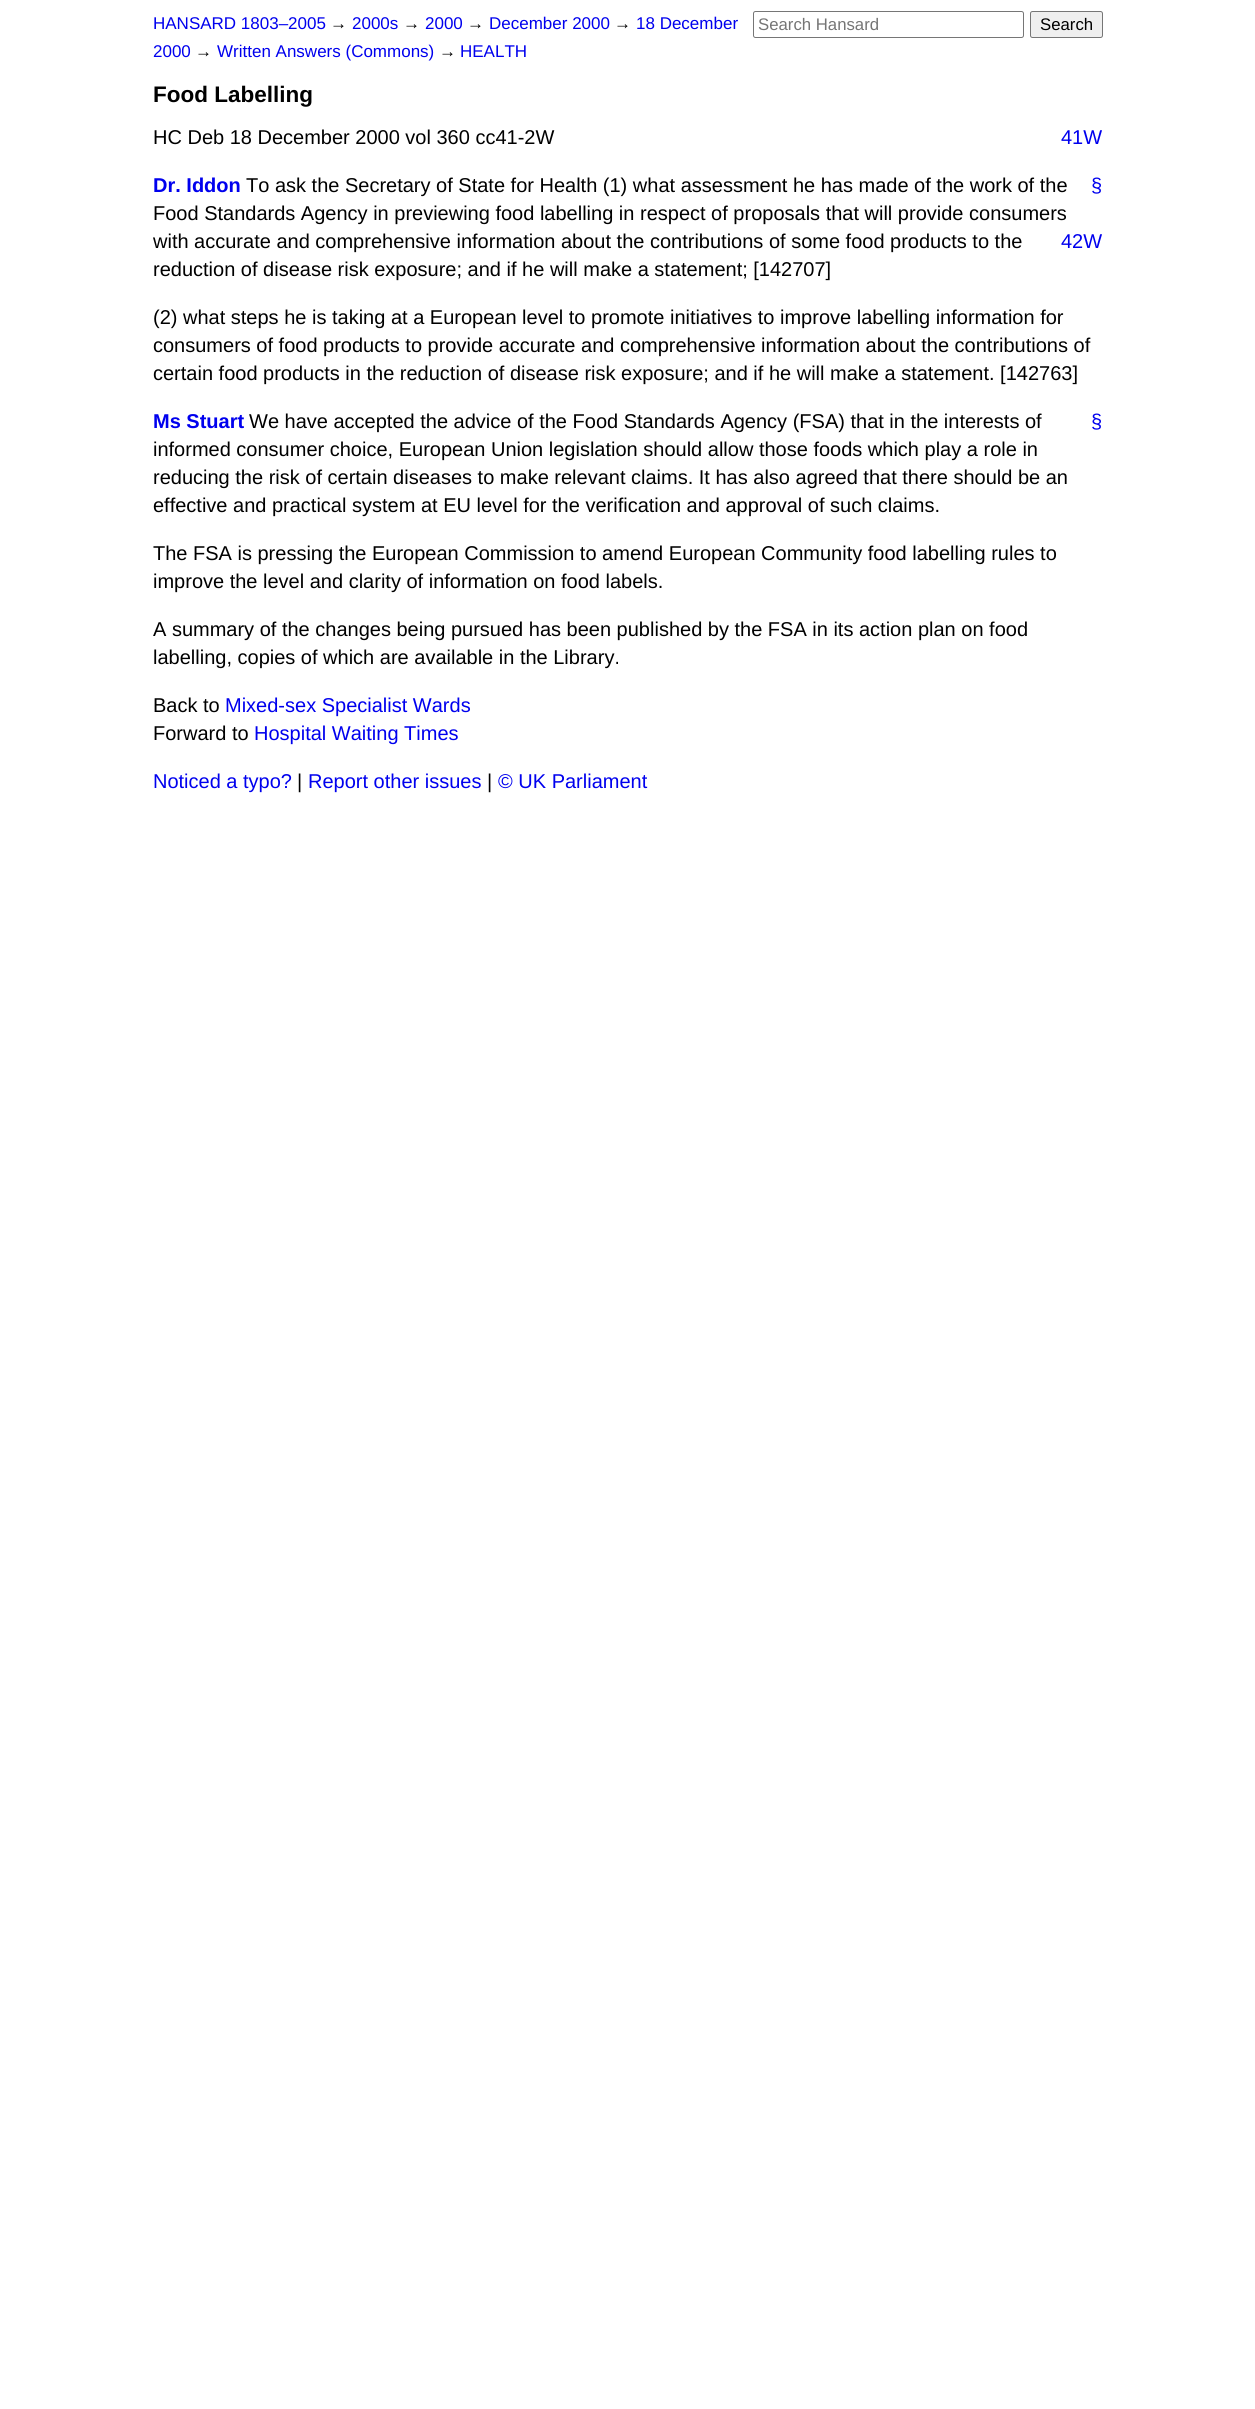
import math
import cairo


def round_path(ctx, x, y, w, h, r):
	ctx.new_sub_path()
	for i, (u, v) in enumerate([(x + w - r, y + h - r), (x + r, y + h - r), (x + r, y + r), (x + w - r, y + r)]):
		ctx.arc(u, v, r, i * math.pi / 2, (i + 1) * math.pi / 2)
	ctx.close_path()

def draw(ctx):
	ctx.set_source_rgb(1, 1, 1)
	ctx.paint()
	ctx.select_font_face('Liberation Sans')
	ctx.set_font_size(17)
	ctx.set_source_rgb(0, 0, 0.933)
	ctx.move_to(153, 29)
	ctx.show_text('HANSARD 1803–2005')
	ctx.set_source_rgb(0, 0, 0)
	ctx.move_to(330, 29)
	ctx.show_text('→')
	ctx.set_source_rgb(0, 0, 0.933)
	ctx.move_to(352, 29)
	ctx.show_text('2000s')
	ctx.set_source_rgb(0, 0, 0)
	ctx.move_to(403, 29)
	ctx.show_text('→')
	ctx.set_source_rgb(0, 0, 0.933)
	ctx.move_to(425, 29)
	ctx.show_text('2000')
	ctx.set_source_rgb(0, 0, 0)
	ctx.move_to(467, 29)
	ctx.show_text('→')
	ctx.set_source_rgb(0, 0, 0.933)
	ctx.move_to(489, 29)
	ctx.show_text('December 2000')
	ctx.set_source_rgb(0, 0, 0)
	ctx.move_to(614, 29)
	ctx.show_text('→')
	ctx.set_source_rgb(0, 0, 0.933)
	ctx.move_to(636, 29)
	ctx.show_text('18 December')
	ctx.move_to(153, 57)
	ctx.show_text('2000')
	ctx.set_source_rgb(0, 0, 0)
	ctx.move_to(195, 57)
	ctx.show_text('→')
	ctx.set_source_rgb(0, 0, 0.933)
	ctx.move_to(217, 57)
	ctx.show_text('Written Answers (Commons)')
	ctx.set_source_rgb(0, 0, 0)
	ctx.move_to(439, 57)
	ctx.show_text('→')
	ctx.set_source_rgb(0, 0, 0.933)
	ctx.move_to(460, 57)
	ctx.show_text('HEALTH')
	round_path(ctx, 753.5, 11.5, 270, 26, 2)
	ctx.set_source_rgb(0.463, 0.463, 0.463)
	ctx.set_line_width(1)
	ctx.stroke()
	ctx.set_font_size(16.75)
	ctx.set_source_rgb(0.459, 0.459, 0.459)
	ctx.move_to(758, 30)
	ctx.show_text('Search Hansard')
	ctx.set_source_rgb(0.937, 0.937, 0.937)
	round_path(ctx, 1030.5, 11.5, 72, 26, 2)
	ctx.fill_preserve()
	ctx.set_source_rgb(0.463, 0.463, 0.463)
	ctx.stroke()
	ctx.set_source_rgb(0, 0, 0)
	ctx.move_to(1040, 30)
	ctx.show_text('Search')
	ctx.select_font_face('Liberation Sans', cairo.FONT_SLANT_NORMAL, cairo.FONT_WEIGHT_BOLD)
	ctx.set_font_size(22.5)
	ctx.move_to(153, 102)
	ctx.show_text('Food Labelling')
	ctx.select_font_face('Liberation Sans')
	ctx.set_font_size(20)
	ctx.move_to(153, 144)
	ctx.show_text('HC Deb 18 December 2000 vol 360 cc41-2W')
	ctx.set_source_rgb(0, 0, 0.933)
	ctx.move_to(1061, 144)
	ctx.show_text('41W')
	ctx.set_source_rgb(0, 0, 0)
	for x, y, s in [
		(246, 192, 'To ask the Secretary of State for Health (1) what assessment he has made of the work of the'),
		(153, 220, 'Food Standards Agency in previewing food labelling in respect of proposals that will provide consumers'),
		(153, 248, 'with accurate and comprehensive information about the contributions of some food products to the'),
	]:
		ctx.move_to(x, y)
		ctx.show_text(s)
	ctx.set_source_rgb(0, 0, 0.933)
	ctx.move_to(1061, 248)
	ctx.show_text('42W')
	ctx.set_source_rgb(0, 0, 0)
	ctx.move_to(153, 276)
	ctx.show_text('reduction of disease risk exposure; and if he will make a statement; [142707]')
	ctx.select_font_face('Liberation Sans', cairo.FONT_SLANT_NORMAL, cairo.FONT_WEIGHT_BOLD)
	ctx.set_source_rgb(0, 0, 0.933)
	ctx.move_to(153, 192)
	ctx.show_text('Dr. Iddon')
	ctx.select_font_face('Liberation Sans')
	ctx.move_to(1091, 192)
	ctx.show_text('§')
	ctx.set_source_rgb(0, 0, 0)
	for x, y, s in [
		(153, 324, '(2) what steps he is taking at a European level to promote initiatives to improve labelling information for'),
		(153, 352, 'consumers of food products to provide accurate and comprehensive information about the contributions of'),
		(153, 380, 'certain food products in the reduction of disease risk exposure; and if he will make a statement. [142763]'),
	]:
		ctx.move_to(x, y)
		ctx.show_text(s)
	ctx.select_font_face('Liberation Sans', cairo.FONT_SLANT_NORMAL, cairo.FONT_WEIGHT_BOLD)
	ctx.set_source_rgb(0, 0, 0.933)
	ctx.move_to(153, 428)
	ctx.show_text('Ms Stuart')
	ctx.select_font_face('Liberation Sans')
	ctx.set_source_rgb(0, 0, 0)
	ctx.move_to(249, 428)
	ctx.show_text('We have accepted the advice of the Food Standards Agency (FSA) that in the interests of')
	ctx.set_source_rgb(0, 0, 0.933)
	ctx.move_to(1091, 428)
	ctx.show_text('§')
	ctx.set_source_rgb(0, 0, 0)
	for x, y, s in [
		(153, 456, 'informed consumer choice, European Union legislation should allow those foods which play a role in'),
		(153, 484, 'reducing the risk of certain diseases to make relevant claims. It has also agreed that there should be an'),
		(153, 512, 'effective and practical system at EU level for the verification and approval of such claims.'),
		(153, 560, 'The FSA is pressing the European Commission to amend European Community food labelling rules to'),
		(153, 588, 'improve the level and clarity of information on food labels.'),
		(153, 636, 'A summary of the changes being pursued has been published by the FSA in its action plan on food'),
		(153, 664, 'labelling, copies of which are available in the Library.'),
		(153, 712, 'Back to'),
	]:
		ctx.move_to(x, y)
		ctx.show_text(s)
	ctx.set_source_rgb(0, 0, 0.933)
	ctx.move_to(225, 712)
	ctx.show_text('Mixed-sex Specialist Wards')
	ctx.set_source_rgb(0, 0, 0)
	ctx.move_to(153, 740)
	ctx.show_text('Forward to')
	ctx.set_source_rgb(0, 0, 0.933)
	ctx.move_to(254, 740)
	ctx.show_text('Hospital Waiting Times')
	ctx.move_to(153, 788)
	ctx.show_text('Noticed a typo?')
	ctx.set_source_rgb(0, 0, 0)
	ctx.move_to(297, 788)
	ctx.show_text('|')
	ctx.set_source_rgb(0, 0, 0.933)
	ctx.move_to(308, 788)
	ctx.show_text('Report other issues')
	ctx.set_source_rgb(0, 0, 0)
	ctx.move_to(487, 788)
	ctx.show_text('|')
	ctx.set_source_rgb(0, 0, 0.933)
	ctx.move_to(498, 788)
	ctx.show_text('© UK Parliament')


surface = cairo.ImageSurface(cairo.FORMAT_RGB24, 1255, 2409)
ctx = cairo.Context(surface)
options = cairo.FontOptions()
options.set_hint_metrics(cairo.HINT_METRICS_OFF)
options.set_hint_style(cairo.HINT_STYLE_NONE)
ctx.set_font_options(options)
ctx.set_miter_limit(4)
draw(ctx)
surface.write_to_png('image.png')
